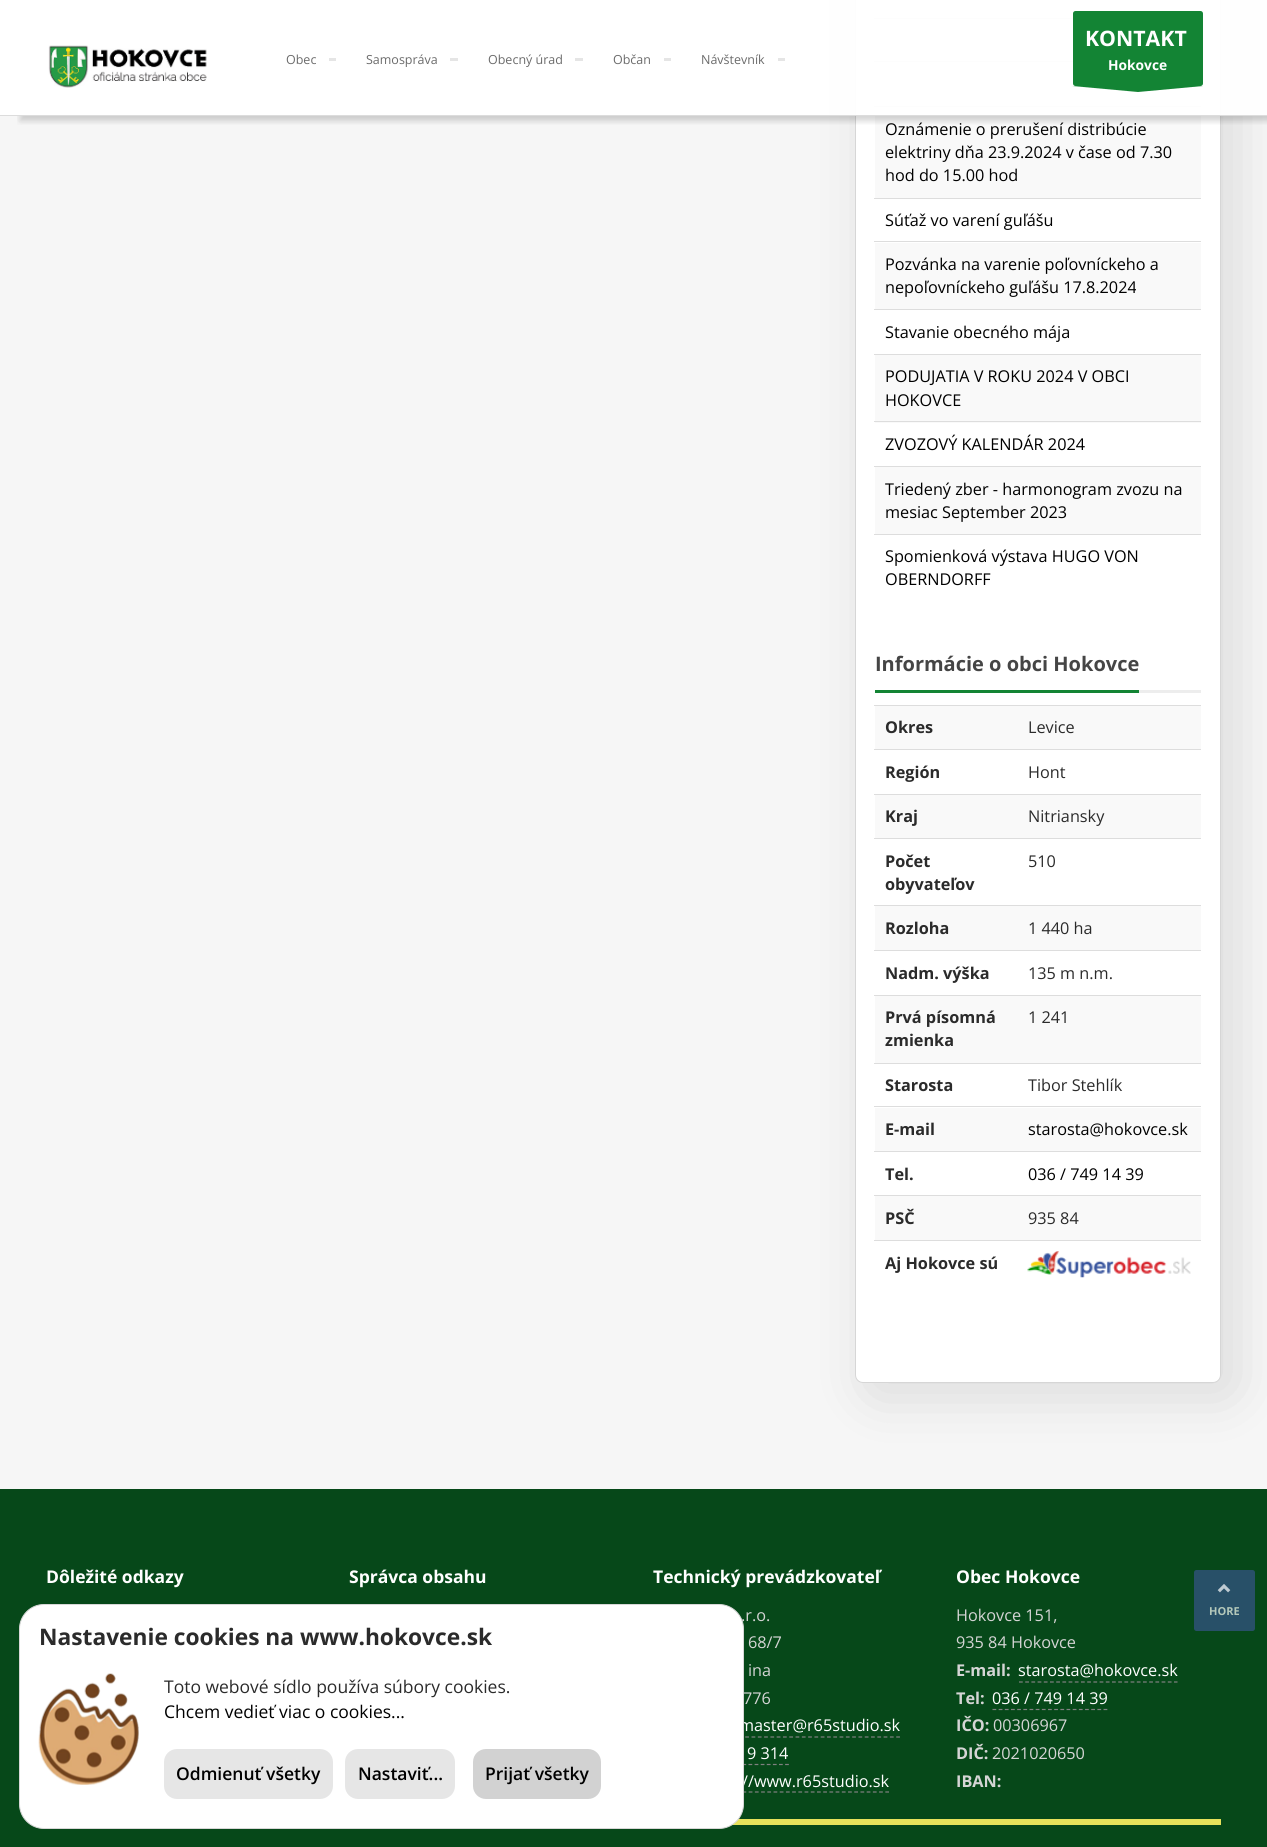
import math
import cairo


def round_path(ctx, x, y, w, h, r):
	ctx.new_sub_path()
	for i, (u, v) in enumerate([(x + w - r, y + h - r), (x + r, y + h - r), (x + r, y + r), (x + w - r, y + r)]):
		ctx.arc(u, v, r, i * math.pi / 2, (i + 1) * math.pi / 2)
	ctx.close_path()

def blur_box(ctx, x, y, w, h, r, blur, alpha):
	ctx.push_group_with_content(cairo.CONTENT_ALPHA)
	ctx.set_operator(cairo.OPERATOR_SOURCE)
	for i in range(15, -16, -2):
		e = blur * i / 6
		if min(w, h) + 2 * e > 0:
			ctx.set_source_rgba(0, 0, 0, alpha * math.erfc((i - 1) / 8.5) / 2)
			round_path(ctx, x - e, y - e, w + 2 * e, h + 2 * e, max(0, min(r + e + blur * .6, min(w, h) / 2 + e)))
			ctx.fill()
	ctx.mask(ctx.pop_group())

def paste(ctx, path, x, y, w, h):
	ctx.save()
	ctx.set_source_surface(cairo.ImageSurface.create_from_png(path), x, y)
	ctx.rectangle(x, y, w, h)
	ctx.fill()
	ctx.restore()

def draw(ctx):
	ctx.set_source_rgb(0.961, 0.961, 0.961)
	ctx.paint()
	ctx.set_source_rgb(0, 0, 0)
	blur_box(ctx, 874, -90, 354, 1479, 1, 29.5, 0.14)
	ctx.set_source_rgb(1, 1, 1)
	round_path(ctx, 855.5, -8.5, 365, 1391, 7.5)
	ctx.fill_preserve()
	ctx.set_source_rgb(0.839, 0.839, 0.839)
	ctx.set_line_width(1)
	ctx.stroke()
	ctx.set_source_rgb(0.976, 0.976, 0.976)
	ctx.rectangle(875, 19, 198, 44)
	ctx.fill()
	ctx.set_source_rgb(0.867, 0.867, 0.867)
	ctx.rectangle(874, 18, 199, 1)
	ctx.rectangle(874, 61, 199, 1)
	ctx.fill()
	ctx.set_source_rgb(0.976, 0.976, 0.976)
	ctx.rectangle(875, 107, 326, 91)
	ctx.fill()
	ctx.set_source_rgb(0.867, 0.867, 0.867)
	ctx.rectangle(874, 106, 327, 1)
	ctx.fill()
	ctx.save()
	ctx.rectangle(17, 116, 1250, 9)
	ctx.clip()
	ctx.set_source_rgb(0, 0, 0)
	blur_box(ctx, 20, 20, 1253, 101, 0, 3, 0.17)
	ctx.restore()
	ctx.set_source_rgba(1, 1, 1, 0.95)
	ctx.rectangle(0, 0, 1267, 115)
	ctx.fill()
	ctx.set_source_rgb(0.863, 0.863, 0.863)
	ctx.rectangle(0, 115, 1267, 1)
	ctx.fill()
	paste(ctx, 'media/1.png', 48, 45, 159, 43)
	ctx.select_font_face('Open Sans')
	ctx.set_font_size(12.5)
	ctx.set_source_rgb(0.42, 0.42, 0.42)
	ctx.move_to(286, 64)
	ctx.show_text('Obec')
	ctx.set_source_rgb(0.898, 0.898, 0.898)
	ctx.rectangle(329, 58, 7, 3)
	ctx.fill()
	ctx.set_source_rgb(0.42, 0.42, 0.42)
	ctx.move_to(366, 64)
	ctx.show_text('Samospráva')
	ctx.set_source_rgb(0.898, 0.898, 0.898)
	ctx.rectangle(450, 58, 8, 3)
	ctx.fill()
	ctx.set_source_rgb(0.42, 0.42, 0.42)
	ctx.move_to(488, 64)
	ctx.show_text('Obecný úrad')
	ctx.set_source_rgb(0.898, 0.898, 0.898)
	ctx.rectangle(575, 58, 8, 3)
	ctx.fill()
	ctx.set_source_rgb(0.42, 0.42, 0.42)
	ctx.move_to(613, 64)
	ctx.show_text('Občan')
	ctx.set_source_rgb(0.898, 0.898, 0.898)
	ctx.rectangle(664, 58, 7, 3)
	ctx.fill()
	ctx.set_source_rgb(0.42, 0.42, 0.42)
	ctx.move_to(701, 64)
	ctx.show_text('Návštevník')
	ctx.set_source_rgb(0.898, 0.898, 0.898)
	ctx.rectangle(778, 58, 7, 3)
	ctx.fill()
	ctx.set_source_rgb(0.078, 0.518, 0.204)
	round_path(ctx, 1073, 11, 130, 75, 2.5)
	ctx.fill()
	ctx.select_font_face('Open Sans', cairo.FONT_SLANT_NORMAL, cairo.FONT_WEIGHT_BOLD)
	ctx.set_font_size(21.25)
	ctx.set_source_rgb(1, 1, 1)
	ctx.move_to(1085, 46)
	ctx.show_text('KONTAKT')
	ctx.set_font_size(13.75)
	ctx.move_to(1108, 70)
	ctx.show_text('Hokovce')
	ctx.set_source_rgb(0.078, 0.518, 0.204)
	ctx.set_fill_rule(cairo.FILL_RULE_EVEN_ODD)
	ctx.new_path()
	ctx.move_to(1203, 86)
	ctx.line_to(1138, 92)
	ctx.line_to(1072, 86)
	ctx.close_path()
	ctx.fill()
	ctx.select_font_face('Open Sans')
	ctx.set_font_size(16.25)
	ctx.set_source_rgb(0, 0, 0)
	for x, y, s in [
		(885, 135, 'Oznámenie o prerušení distribúcie'),
		(885, 158, 'elektriny dňa 23.9.2024 v čase od 7.30'),
		(885, 181, 'hod do 15.00 hod'),
	]:
		ctx.move_to(x, y)
		ctx.show_text(s)
	ctx.set_source_rgb(0.867, 0.867, 0.867)
	ctx.rectangle(874, 198, 327, 1)
	ctx.fill()
	ctx.set_source_rgb(0, 0, 0)
	ctx.move_to(885, 226)
	ctx.show_text('Súťaž vo varení guľášu')
	ctx.set_source_rgb(0.976, 0.976, 0.976)
	ctx.rectangle(875, 243, 326, 66)
	ctx.fill()
	ctx.set_source_rgb(0.867, 0.867, 0.867)
	ctx.rectangle(874, 241, 327, 1)
	ctx.fill()
	ctx.set_source_rgb(0, 0, 0)
	ctx.move_to(885, 270)
	ctx.show_text('Pozvánka na varenie poľovníckeho a')
	ctx.move_to(885, 293)
	ctx.show_text('nepoľovníckeho guľášu 17.8.2024')
	ctx.set_source_rgb(0.867, 0.867, 0.867)
	ctx.rectangle(874, 309, 327, 1)
	ctx.fill()
	ctx.set_source_rgb(0, 0, 0)
	ctx.move_to(885, 338)
	ctx.show_text('Stavanie obecného mája')
	ctx.set_source_rgb(0.976, 0.976, 0.976)
	ctx.rectangle(875, 355, 326, 68)
	ctx.fill()
	ctx.set_source_rgb(0.867, 0.867, 0.867)
	ctx.rectangle(874, 354, 327, 1)
	ctx.fill()
	ctx.set_source_rgb(0, 0, 0)
	ctx.move_to(885, 382)
	ctx.show_text('PODUJATIA V ROKU 2024 V OBCI')
	ctx.move_to(885, 406)
	ctx.show_text('HOKOVCE')
	ctx.set_source_rgb(0.867, 0.867, 0.867)
	ctx.rectangle(874, 421, 327, 1)
	ctx.fill()
	ctx.set_source_rgb(0, 0, 0)
	ctx.move_to(885, 450)
	ctx.show_text('ZVOZOVÝ KALENDÁR 2024')
	ctx.set_source_rgb(0.976, 0.976, 0.976)
	ctx.rectangle(875, 467, 326, 67)
	ctx.fill()
	ctx.set_source_rgb(0.867, 0.867, 0.867)
	ctx.rectangle(874, 466, 327, 1)
	ctx.fill()
	ctx.set_source_rgb(0, 0, 0)
	ctx.move_to(885, 495)
	ctx.show_text('Triedený zber - harmonogram zvozu na')
	ctx.move_to(885, 518)
	ctx.show_text('mesiac September 2023')
	ctx.set_source_rgb(0.867, 0.867, 0.867)
	ctx.rectangle(874, 534, 327, 1)
	ctx.fill()
	ctx.set_source_rgb(0, 0, 0)
	ctx.move_to(885, 562)
	ctx.show_text('Spomienková výstava HUGO VON')
	ctx.move_to(885, 585)
	ctx.show_text('OBERNDORFF')
	ctx.set_source_rgb(0.929, 0.929, 0.929)
	ctx.rectangle(1139, 690, 62, 3)
	ctx.fill()
	ctx.set_source_rgb(0.078, 0.518, 0.204)
	ctx.rectangle(875, 690, 264, 3)
	ctx.fill()
	ctx.select_font_face('Open Sans', cairo.FONT_SLANT_NORMAL, cairo.FONT_WEIGHT_BOLD)
	ctx.set_font_size(20)
	ctx.set_source_rgb(0.271, 0.271, 0.271)
	ctx.move_to(875, 671)
	ctx.show_text('Informácie o obci Hokovce')
	ctx.set_source_rgb(0.976, 0.976, 0.976)
	ctx.rectangle(875, 706, 326, 43)
	ctx.fill()
	ctx.set_font_size(16.25)
	ctx.set_source_rgb(0.169, 0.169, 0.169)
	ctx.move_to(885, 733)
	ctx.show_text('Okres')
	ctx.set_source_rgb(0.867, 0.867, 0.867)
	ctx.rectangle(874, 705, 327, 1)
	ctx.fill()
	ctx.select_font_face('Open Sans')
	ctx.set_source_rgb(0.169, 0.169, 0.169)
	ctx.move_to(1028, 733)
	ctx.show_text('Levice')
	ctx.select_font_face('Open Sans', cairo.FONT_SLANT_NORMAL, cairo.FONT_WEIGHT_BOLD)
	ctx.move_to(885, 778)
	ctx.show_text('Región')
	ctx.set_source_rgb(0.867, 0.867, 0.867)
	ctx.rectangle(874, 749, 327, 1)
	ctx.fill()
	ctx.select_font_face('Open Sans')
	ctx.set_source_rgb(0.169, 0.169, 0.169)
	ctx.move_to(1028, 778)
	ctx.show_text('Hont')
	ctx.set_source_rgb(0.976, 0.976, 0.976)
	ctx.rectangle(875, 795, 326, 43)
	ctx.fill()
	ctx.select_font_face('Open Sans', cairo.FONT_SLANT_NORMAL, cairo.FONT_WEIGHT_BOLD)
	ctx.set_source_rgb(0.169, 0.169, 0.169)
	ctx.move_to(885, 822)
	ctx.show_text('Kraj')
	ctx.set_source_rgb(0.867, 0.867, 0.867)
	ctx.rectangle(874, 794, 327, 1)
	ctx.fill()
	ctx.select_font_face('Open Sans')
	ctx.set_source_rgb(0.169, 0.169, 0.169)
	ctx.move_to(1028, 822)
	ctx.show_text('Nitriansky')
	ctx.select_font_face('Open Sans', cairo.FONT_SLANT_NORMAL, cairo.FONT_WEIGHT_BOLD)
	ctx.move_to(885, 867)
	ctx.show_text('Počet')
	ctx.move_to(885, 890)
	ctx.show_text('obyvateľov')
	ctx.set_source_rgb(0.867, 0.867, 0.867)
	ctx.rectangle(874, 838, 327, 1)
	ctx.fill()
	ctx.select_font_face('Open Sans')
	ctx.set_source_rgb(0.169, 0.169, 0.169)
	ctx.move_to(1028, 867)
	ctx.show_text('510')
	ctx.set_source_rgb(0.976, 0.976, 0.976)
	ctx.rectangle(875, 906, 326, 44)
	ctx.fill()
	ctx.select_font_face('Open Sans', cairo.FONT_SLANT_NORMAL, cairo.FONT_WEIGHT_BOLD)
	ctx.set_source_rgb(0.169, 0.169, 0.169)
	ctx.move_to(885, 934)
	ctx.show_text('Rozloha')
	ctx.set_source_rgb(0.867, 0.867, 0.867)
	ctx.rectangle(874, 905, 327, 1)
	ctx.fill()
	ctx.select_font_face('Open Sans')
	ctx.set_source_rgb(0.169, 0.169, 0.169)
	ctx.move_to(1028, 934)
	ctx.show_text('1 440 ha')
	ctx.select_font_face('Open Sans', cairo.FONT_SLANT_NORMAL, cairo.FONT_WEIGHT_BOLD)
	ctx.move_to(885, 979)
	ctx.show_text('Nadm. výška')
	ctx.set_source_rgb(0.867, 0.867, 0.867)
	ctx.rectangle(874, 950, 327, 1)
	ctx.fill()
	ctx.select_font_face('Open Sans')
	ctx.set_source_rgb(0.169, 0.169, 0.169)
	ctx.move_to(1028, 979)
	ctx.show_text('135 m n.m.')
	ctx.set_source_rgb(0.976, 0.976, 0.976)
	ctx.rectangle(875, 996, 326, 67)
	ctx.fill()
	ctx.select_font_face('Open Sans', cairo.FONT_SLANT_NORMAL, cairo.FONT_WEIGHT_BOLD)
	ctx.set_source_rgb(0.169, 0.169, 0.169)
	ctx.move_to(885, 1023)
	ctx.show_text('Prvá písomná')
	ctx.move_to(885, 1046)
	ctx.show_text('zmienka')
	ctx.set_source_rgb(0.867, 0.867, 0.867)
	ctx.rectangle(874, 995, 327, 1)
	ctx.fill()
	ctx.select_font_face('Open Sans')
	ctx.set_source_rgb(0.169, 0.169, 0.169)
	ctx.move_to(1028, 1023)
	ctx.show_text('1 241')
	ctx.select_font_face('Open Sans', cairo.FONT_SLANT_NORMAL, cairo.FONT_WEIGHT_BOLD)
	ctx.move_to(885, 1091)
	ctx.show_text('Starosta')
	ctx.set_source_rgb(0.867, 0.867, 0.867)
	ctx.rectangle(874, 1063, 327, 1)
	ctx.fill()
	ctx.select_font_face('Open Sans')
	ctx.set_source_rgb(0.169, 0.169, 0.169)
	ctx.move_to(1028, 1091)
	ctx.show_text('Tibor Stehlík')
	ctx.set_source_rgb(0.976, 0.976, 0.976)
	ctx.rectangle(875, 1108, 326, 43)
	ctx.fill()
	ctx.select_font_face('Open Sans', cairo.FONT_SLANT_NORMAL, cairo.FONT_WEIGHT_BOLD)
	ctx.set_source_rgb(0.169, 0.169, 0.169)
	ctx.move_to(885, 1135)
	ctx.show_text('E-mail')
	ctx.set_source_rgb(0.867, 0.867, 0.867)
	ctx.rectangle(874, 1106, 327, 1)
	ctx.fill()
	ctx.select_font_face('Open Sans')
	ctx.set_source_rgb(0, 0, 0)
	ctx.move_to(1028, 1135)
	ctx.show_text('starosta@hokovce.sk')
	ctx.select_font_face('Open Sans', cairo.FONT_SLANT_NORMAL, cairo.FONT_WEIGHT_BOLD)
	ctx.set_source_rgb(0.169, 0.169, 0.169)
	ctx.move_to(885, 1180)
	ctx.show_text('Tel.')
	ctx.set_source_rgb(0.867, 0.867, 0.867)
	ctx.rectangle(874, 1151, 327, 1)
	ctx.fill()
	ctx.select_font_face('Open Sans')
	ctx.set_source_rgb(0, 0, 0)
	ctx.move_to(1028, 1180)
	ctx.show_text('036 / 749 14 39')
	ctx.set_source_rgb(0.976, 0.976, 0.976)
	ctx.rectangle(875, 1196, 326, 44)
	ctx.fill()
	ctx.select_font_face('Open Sans', cairo.FONT_SLANT_NORMAL, cairo.FONT_WEIGHT_BOLD)
	ctx.set_source_rgb(0.169, 0.169, 0.169)
	ctx.move_to(885, 1224)
	ctx.show_text('PSČ')
	ctx.set_source_rgb(0.867, 0.867, 0.867)
	ctx.rectangle(874, 1195, 327, 1)
	ctx.fill()
	ctx.select_font_face('Open Sans')
	ctx.set_source_rgb(0.169, 0.169, 0.169)
	ctx.move_to(1028, 1224)
	ctx.show_text('935 84')
	ctx.set_source_rgb(0.867, 0.867, 0.867)
	ctx.rectangle(874, 1240, 327, 1)
	ctx.fill()
	paste(ctx, 'media/2.png', 1027, 1251, 164, 27)
	ctx.select_font_face('Open Sans', cairo.FONT_SLANT_NORMAL, cairo.FONT_WEIGHT_BOLD)
	ctx.set_source_rgb(0.169, 0.169, 0.169)
	ctx.move_to(885, 1269)
	ctx.show_text('Aj Hokovce sú')
	ctx.set_source_rgb(0.024, 0.282, 0.098)
	ctx.rectangle(0, 1489, 1267, 358)
	ctx.fill()
	ctx.set_font_size(17.5)
	ctx.set_source_rgb(1, 1, 1)
	for x, y, s in [
		(46, 1583, 'Dôležité odkazy'),
		(349, 1583, 'Správca obsahu'),
		(653, 1583, 'Technický prevádzkovateľ'),
	]:
		ctx.move_to(x, y)
		ctx.show_text(s)
	ctx.select_font_face('Open Sans')
	ctx.set_font_size(16.25)
	ctx.set_source_rgb(0.835, 0.835, 0.835)
	for x, y, s in [
		(741, 1621, '.r.o.'),
		(748, 1648, '68/7'),
		(748, 1676, 'ina'),
		(743, 1704, '776'),
	]:
		ctx.move_to(x, y)
		ctx.show_text(s)
	ctx.set_source_rgb(1, 1, 1)
	ctx.move_to(739, 1731)
	ctx.show_text('master@r65studio.sk')
	ctx.new_path()
	ctx.move_to(707.5, 1737)
	ctx.line_to(900, 1737)
	ctx.set_source_rgb(0.502, 0.502, 0.502)
	ctx.set_line_width(1.2)
	ctx.set_dash([3.75, 2.54])
	ctx.stroke()
	ctx.set_source_rgb(1, 1, 1)
	ctx.move_to(747, 1759)
	ctx.show_text('9 314')
	ctx.new_path()
	ctx.move_to(687.5, 1764.5)
	ctx.line_to(789, 1764.5)
	ctx.set_source_rgb(0.502, 0.502, 0.502)
	ctx.set_dash([3.75, 2.35])
	ctx.stroke()
	ctx.set_source_rgb(1, 1, 1)
	ctx.move_to(742, 1787)
	ctx.show_text('//www.r65studio.sk')
	ctx.new_path()
	ctx.move_to(699, 1792)
	ctx.line_to(889, 1792)
	ctx.set_source_rgb(0.502, 0.502, 0.502)
	ctx.set_dash([3.75, 2.46])
	ctx.stroke()
	ctx.select_font_face('Open Sans', cairo.FONT_SLANT_NORMAL, cairo.FONT_WEIGHT_BOLD)
	ctx.set_font_size(17.5)
	ctx.set_source_rgb(1, 1, 1)
	ctx.move_to(956, 1583)
	ctx.show_text('Obec Hokovce')
	ctx.select_font_face('Open Sans')
	ctx.set_font_size(16.25)
	ctx.set_source_rgb(0.835, 0.835, 0.835)
	ctx.move_to(956, 1621)
	ctx.show_text('Hokovce 151,')
	ctx.move_to(956, 1648)
	ctx.show_text('935 84 Hokovce')
	ctx.select_font_face('Open Sans', cairo.FONT_SLANT_NORMAL, cairo.FONT_WEIGHT_BOLD)
	ctx.move_to(956, 1676)
	ctx.show_text('E-mail:')
	ctx.select_font_face('Open Sans')
	ctx.set_source_rgb(1, 1, 1)
	ctx.move_to(1018, 1676)
	ctx.show_text('starosta@hokovce.sk')
	ctx.new_path()
	ctx.move_to(1019, 1682)
	ctx.line_to(1177.5, 1682)
	ctx.set_source_rgb(0.502, 0.502, 0.502)
	ctx.set_dash([3.75, 2.45])
	ctx.stroke()
	ctx.select_font_face('Open Sans', cairo.FONT_SLANT_NORMAL, cairo.FONT_WEIGHT_BOLD)
	ctx.set_source_rgb(0.835, 0.835, 0.835)
	ctx.move_to(956, 1704)
	ctx.show_text('Tel:')
	ctx.select_font_face('Open Sans')
	ctx.set_source_rgb(1, 1, 1)
	ctx.move_to(992, 1704)
	ctx.show_text('036 / 749 14 39')
	ctx.new_path()
	ctx.move_to(992.5, 1709.5)
	ctx.line_to(1107.5, 1709.5)
	ctx.set_source_rgb(0.502, 0.502, 0.502)
	ctx.set_dash([3.75, 2.42])
	ctx.stroke()
	ctx.select_font_face('Open Sans', cairo.FONT_SLANT_NORMAL, cairo.FONT_WEIGHT_BOLD)
	ctx.set_source_rgb(0.835, 0.835, 0.835)
	ctx.move_to(956, 1731)
	ctx.show_text('IČO:')
	ctx.select_font_face('Open Sans')
	ctx.move_to(993, 1731)
	ctx.show_text('00306967')
	ctx.select_font_face('Open Sans', cairo.FONT_SLANT_NORMAL, cairo.FONT_WEIGHT_BOLD)
	ctx.move_to(956, 1759)
	ctx.show_text('DIČ:')
	ctx.select_font_face('Open Sans')
	ctx.move_to(992, 1759)
	ctx.show_text('2021020650')
	ctx.select_font_face('Open Sans', cairo.FONT_SLANT_NORMAL, cairo.FONT_WEIGHT_BOLD)
	ctx.move_to(956, 1787)
	ctx.show_text('IBAN:')
	ctx.set_source_rgb(0.902, 0.886, 0.357)
	ctx.rectangle(732, 1819, 489, 6)
	ctx.fill()
	ctx.set_source_rgb(0.157, 0.314, 0.408)
	round_path(ctx, 1194, 1570, 61, 61, 2.5)
	ctx.fill()
	paste(ctx, 'media/3.png', 1217, 1584, 14, 9)
	ctx.set_font_size(11)
	ctx.set_source_rgb(0.706, 0.784, 0.729)
	ctx.move_to(1209, 1615)
	ctx.show_text('HORE')
	ctx.set_source_rgb(1, 1, 1)
	round_path(ctx, 19.5, 1604.5, 724, 224, 24.5)
	ctx.fill_preserve()
	ctx.set_source_rgb(0.843, 0.843, 0.843)
	ctx.set_line_width(1)
	ctx.set_dash([])
	ctx.stroke()
	ctx.set_font_size(22.75)
	ctx.set_source_rgb(0.169, 0.169, 0.169)
	ctx.move_to(39, 1645)
	ctx.show_text('Nastavenie cookies na www.hokovce.sk')
	paste(ctx, 'media/4.png', 38, 1673, 101, 112)
	ctx.select_font_face('Open Sans')
	ctx.set_font_size(17.5)
	ctx.move_to(164, 1693)
	ctx.show_text('Toto webové sídlo používa súbory cookies.')
	ctx.set_source_rgb(0, 0, 0)
	ctx.move_to(164, 1718)
	ctx.show_text('Chcem vedieť viac o cookies...')
	ctx.set_source_rgb(0.902, 0.902, 0.902)
	round_path(ctx, 164, 1749, 169, 50, 13)
	ctx.fill()
	ctx.select_font_face('Open Sans SemiBold')
	ctx.set_source_rgb(0, 0, 0)
	ctx.move_to(176, 1780)
	ctx.show_text('Odmienuť všetky')
	ctx.set_source_rgb(0.902, 0.902, 0.902)
	round_path(ctx, 345, 1749, 110, 50, 13)
	ctx.fill()
	ctx.set_source_rgb(0, 0, 0)
	ctx.move_to(358, 1780)
	ctx.show_text('Nastaviť...')
	ctx.set_source_rgb(0.824, 0.824, 0.824)
	round_path(ctx, 473, 1749, 128, 50, 13)
	ctx.fill()
	ctx.set_source_rgb(0, 0, 0)
	ctx.move_to(485, 1780)
	ctx.show_text('Prijať všetky')


surface = cairo.ImageSurface(cairo.FORMAT_RGB24, 1267, 1847)
ctx = cairo.Context(surface)
options = cairo.FontOptions()
options.set_hint_metrics(cairo.HINT_METRICS_OFF)
options.set_hint_style(cairo.HINT_STYLE_NONE)
ctx.set_font_options(options)
ctx.set_miter_limit(4)
draw(ctx)
surface.write_to_png('image.png')
